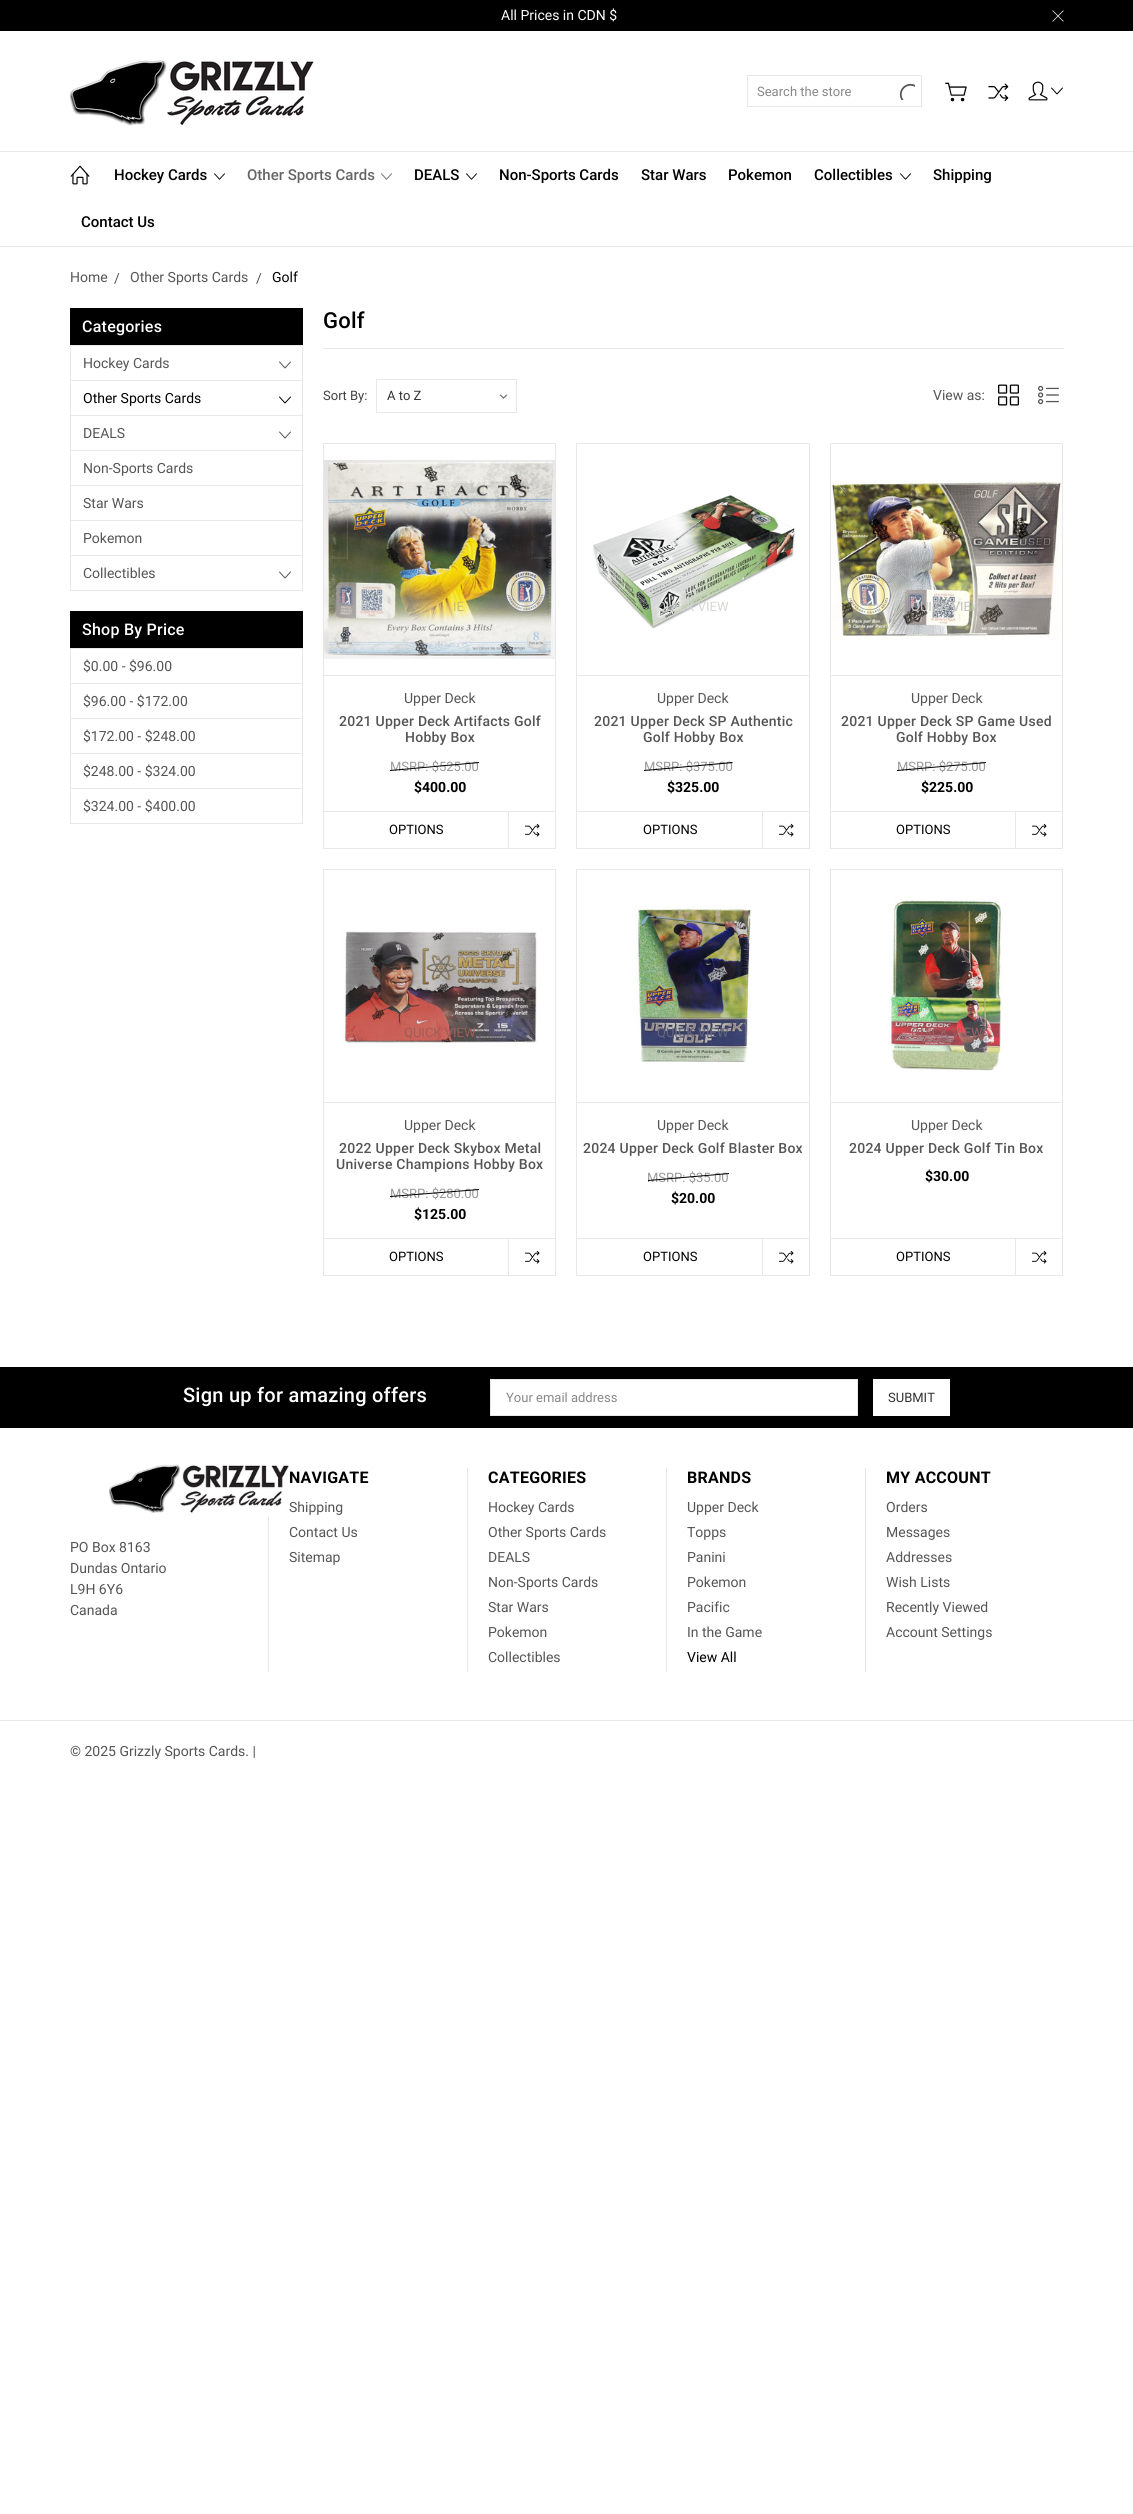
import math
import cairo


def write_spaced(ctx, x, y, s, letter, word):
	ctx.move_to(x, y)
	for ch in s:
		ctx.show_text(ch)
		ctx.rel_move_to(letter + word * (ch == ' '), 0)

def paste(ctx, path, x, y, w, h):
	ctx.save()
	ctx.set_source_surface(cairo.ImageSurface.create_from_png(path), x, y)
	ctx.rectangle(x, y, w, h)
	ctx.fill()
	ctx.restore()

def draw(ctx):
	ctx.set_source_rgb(1, 1, 1)
	ctx.paint()
	ctx.set_source_rgb(0, 0, 0)
	ctx.rectangle(0, 0, 1133, 31)
	ctx.fill()
	ctx.select_font_face('Roboto')
	ctx.set_font_size(14)
	ctx.set_source_rgb(1, 1, 1)
	ctx.move_to(501, 20)
	ctx.show_text('All Prices in CDN $')
	paste(ctx, 'media/1.png', 1052, 10, 12, 12)
	paste(ctx, 'media/2.png', 70, 60, 244, 66)
	ctx.rectangle(747.5, 75.5, 174, 31)
	ctx.set_source_rgb(0.91, 0.91, 0.91)
	ctx.set_line_width(1)
	ctx.stroke()
	ctx.set_font_size(13)
	ctx.set_source_rgb(0.533, 0.533, 0.533)
	ctx.move_to(757, 96)
	ctx.show_text('Search the store')
	paste(ctx, 'media/3.png', 899, 83, 16, 17)
	paste(ctx, 'media/4.png', 945, 82, 22, 20)
	paste(ctx, 'media/5.png', 988, 83, 21, 18)
	paste(ctx, 'media/6.png', 1028, 81, 20, 20)
	paste(ctx, 'media/7.png', 1051, 87, 12, 8)
	ctx.set_source_rgb(0.91, 0.91, 0.91)
	ctx.rectangle(0, 151, 1133, 1)
	ctx.fill()
	ctx.rectangle(0, 246, 1133, 1)
	ctx.fill()
	paste(ctx, 'media/8.png', 70, 165, 20, 20)
	ctx.select_font_face('Roboto Medium')
	ctx.set_font_size(15)
	ctx.set_source_rgb(0, 0, 0)
	ctx.move_to(114, 180)
	ctx.show_text('Hockey Cards')
	paste(ctx, 'media/9.png', 214, 173, 11, 7)
	ctx.set_source_rgb(0.396, 0.396, 0.396)
	ctx.move_to(247, 180)
	ctx.show_text('Other Sports Cards')
	paste(ctx, 'media/10.png', 381, 173, 11, 7)
	ctx.set_source_rgb(0, 0, 0)
	ctx.move_to(414, 180)
	ctx.show_text('DEALS')
	paste(ctx, 'media/9.png', 466, 173, 11, 7)
	for x, y, s in [
		(499, 180, 'Non-Sports Cards'),
		(641, 180, 'Star Wars'),
		(728, 180, 'Pokemon'),
		(814, 180, 'Collectibles'),
	]:
		ctx.move_to(x, y)
		ctx.show_text(s)
	paste(ctx, 'media/9.png', 900, 173, 11, 7)
	ctx.move_to(933, 180)
	ctx.show_text('Shipping')
	ctx.move_to(81, 227)
	ctx.show_text('Contact Us')
	ctx.select_font_face('Roboto')
	ctx.set_font_size(14)
	ctx.set_source_rgb(0.333, 0.333, 0.333)
	for x, y, s in [
		(70, 282, 'Home'),
		(114, 283, '/'),
		(130, 282, 'Other Sports Cards'),
		(256, 283, '/'),
	]:
		ctx.move_to(x, y)
		ctx.show_text(s)
	ctx.set_source_rgb(0, 0, 0)
	ctx.move_to(272, 282)
	ctx.show_text('Golf')
	ctx.rectangle(70, 308, 233, 37)
	ctx.fill()
	ctx.select_font_face('Roboto Medium')
	ctx.set_font_size(16)
	ctx.set_source_rgb(1, 1, 1)
	write_spaced(ctx, 82, 332, 'Categories', 0.25, 0)
	ctx.rectangle(70.5, 345.5, 232, 245)
	ctx.set_source_rgb(0.91, 0.91, 0.91)
	ctx.stroke()
	ctx.select_font_face('Roboto')
	ctx.set_font_size(14)
	ctx.set_source_rgb(0.333, 0.333, 0.333)
	ctx.move_to(83, 368)
	ctx.show_text('Hockey Cards')
	paste(ctx, 'media/11.png', 279, 361, 12, 8)
	ctx.set_source_rgb(0.91, 0.91, 0.91)
	ctx.rectangle(71, 380, 231, 1)
	ctx.fill()
	ctx.set_source_rgb(0, 0, 0)
	ctx.move_to(83, 403)
	ctx.show_text('Other Sports Cards')
	paste(ctx, 'media/7.png', 279, 396, 12, 8)
	ctx.set_source_rgb(0.91, 0.91, 0.91)
	ctx.rectangle(71, 415, 231, 1)
	ctx.fill()
	ctx.set_source_rgb(0.333, 0.333, 0.333)
	ctx.move_to(83, 438)
	ctx.show_text('DEALS')
	paste(ctx, 'media/11.png', 279, 431, 12, 8)
	ctx.set_source_rgb(0.91, 0.91, 0.91)
	ctx.rectangle(71, 450, 231, 1)
	ctx.fill()
	ctx.set_source_rgb(0.333, 0.333, 0.333)
	ctx.move_to(83, 473)
	ctx.show_text('Non-Sports Cards')
	ctx.set_source_rgb(0.91, 0.91, 0.91)
	ctx.rectangle(71, 485, 231, 1)
	ctx.fill()
	ctx.set_source_rgb(0.333, 0.333, 0.333)
	ctx.move_to(83, 508)
	ctx.show_text('Star Wars')
	ctx.set_source_rgb(0.91, 0.91, 0.91)
	ctx.rectangle(71, 520, 231, 1)
	ctx.fill()
	ctx.set_source_rgb(0.333, 0.333, 0.333)
	ctx.move_to(83, 543)
	ctx.show_text('Pokemon')
	ctx.set_source_rgb(0.91, 0.91, 0.91)
	ctx.rectangle(71, 555, 231, 1)
	ctx.fill()
	ctx.set_source_rgb(0.333, 0.333, 0.333)
	ctx.move_to(83, 578)
	ctx.show_text('Collectibles')
	paste(ctx, 'media/11.png', 279, 571, 12, 8)
	ctx.set_source_rgb(0, 0, 0)
	ctx.rectangle(70, 611, 233, 37)
	ctx.fill()
	ctx.select_font_face('Roboto Medium')
	ctx.set_font_size(16)
	ctx.set_source_rgb(1, 1, 1)
	write_spaced(ctx, 82, 635, 'Shop By Price', 0.25, 0)
	ctx.rectangle(70.5, 648.5, 232, 175)
	ctx.set_source_rgb(0.91, 0.91, 0.91)
	ctx.stroke()
	ctx.select_font_face('Roboto')
	ctx.set_font_size(14)
	ctx.set_source_rgb(0.333, 0.333, 0.333)
	ctx.move_to(83, 671)
	ctx.show_text('$0.00 - $96.00')
	ctx.set_source_rgb(0.91, 0.91, 0.91)
	ctx.rectangle(71, 683, 231, 1)
	ctx.fill()
	ctx.set_source_rgb(0.333, 0.333, 0.333)
	ctx.move_to(83, 706)
	ctx.show_text('$96.00 - $172.00')
	ctx.set_source_rgb(0.91, 0.91, 0.91)
	ctx.rectangle(71, 718, 231, 1)
	ctx.fill()
	ctx.set_source_rgb(0.333, 0.333, 0.333)
	ctx.move_to(83, 741)
	ctx.show_text('$172.00 - $248.00')
	ctx.set_source_rgb(0.91, 0.91, 0.91)
	ctx.rectangle(71, 753, 231, 1)
	ctx.fill()
	ctx.set_source_rgb(0.333, 0.333, 0.333)
	ctx.move_to(83, 776)
	ctx.show_text('$248.00 - $324.00')
	ctx.set_source_rgb(0.91, 0.91, 0.91)
	ctx.rectangle(71, 788, 231, 1)
	ctx.fill()
	ctx.set_source_rgb(0.333, 0.333, 0.333)
	ctx.move_to(83, 811)
	ctx.show_text('$324.00 - $400.00')
	ctx.set_source_rgb(0.91, 0.91, 0.91)
	ctx.rectangle(323, 348, 741, 1)
	ctx.fill()
	ctx.select_font_face('Roboto Medium')
	ctx.set_font_size(22)
	ctx.set_source_rgb(0, 0, 0)
	write_spaced(ctx, 323, 328, 'Golf', 0.25, 0)
	ctx.select_font_face('Roboto')
	ctx.set_font_size(13)
	ctx.set_source_rgb(0.259, 0.259, 0.259)
	ctx.move_to(323, 400)
	ctx.show_text('Sort By:')
	paste(ctx, 'media/12.png', 499, 394, 9, 5)
	ctx.rectangle(376.5, 379.5, 140, 33)
	ctx.set_source_rgb(0.91, 0.91, 0.91)
	ctx.stroke()
	ctx.set_source_rgb(0.2, 0.2, 0.2)
	ctx.move_to(387, 400)
	ctx.show_text('A to Z')
	ctx.set_font_size(14)
	ctx.set_source_rgb(0.333, 0.333, 0.333)
	ctx.move_to(933, 400)
	ctx.show_text('View as:')
	paste(ctx, 'media/13.png', 998, 384, 21, 22)
	paste(ctx, 'media/14.png', 1038, 385, 21, 20)
	ctx.rectangle(323.5, 443.5, 232, 405)
	ctx.set_source_rgb(0.91, 0.91, 0.91)
	ctx.stroke()
	paste(ctx, 'media/15.png', 324, 460, 231, 199)
	ctx.set_font_size(13)
	ctx.set_source_rgb(0.796, 0.729, 0.424)
	ctx.move_to(453, 611)
	ctx.show_text('IE')
	ctx.set_source_rgb(0.91, 0.91, 0.91)
	ctx.rectangle(324, 675, 231, 1)
	ctx.fill()
	ctx.set_font_size(14)
	ctx.set_source_rgb(0.333, 0.333, 0.333)
	ctx.move_to(404, 703)
	ctx.show_text('Upper Deck')
	ctx.select_font_face('Roboto Medium')
	write_spaced(ctx, 339, 726, '2021 Upper Deck Artifacts Golf', 0.25, 0)
	write_spaced(ctx, 405, 742, 'Hobby Box', 0.25, 0)
	ctx.select_font_face('Roboto')
	ctx.set_font_size(13)
	ctx.set_source_rgb(0.6, 0.6, 0.6)
	ctx.move_to(390, 771)
	ctx.show_text('MSRP: $525.00')
	ctx.set_source_rgb(0, 0, 0)
	ctx.new_path()
	ctx.move_to(479, 763)
	ctx.line_to(390, 771)
	ctx.line_to(390, 770)
	ctx.line_to(479, 762)
	ctx.close_path()
	ctx.fill()
	ctx.select_font_face('Roboto', cairo.FONT_SLANT_NORMAL, cairo.FONT_WEIGHT_BOLD)
	ctx.set_font_size(14)
	ctx.move_to(414, 792)
	ctx.show_text('$400.00')
	ctx.set_source_rgb(0.91, 0.91, 0.91)
	ctx.rectangle(324, 811, 231, 1)
	ctx.fill()
	ctx.rectangle(508, 812, 1, 36)
	ctx.fill()
	ctx.select_font_face('Roboto')
	ctx.set_font_size(13)
	ctx.set_source_rgb(0, 0, 0)
	ctx.move_to(389, 834)
	ctx.show_text('OPTIONS')
	paste(ctx, 'media/16.png', 525, 823, 15, 14)
	ctx.rectangle(576.5, 443.5, 233, 405)
	ctx.set_source_rgb(0.91, 0.91, 0.91)
	ctx.stroke()
	paste(ctx, 'media/17.png', 593, 495, 203, 134)
	ctx.set_source_rgb(0.835, 0.843, 0.831)
	ctx.move_to(657, 611)
	ctx.show_text('QUICK VIEW')
	ctx.set_source_rgb(0.91, 0.91, 0.91)
	ctx.rectangle(577, 675, 232, 1)
	ctx.fill()
	ctx.set_font_size(14)
	ctx.set_source_rgb(0.333, 0.333, 0.333)
	ctx.move_to(657, 703)
	ctx.show_text('Upper Deck')
	ctx.select_font_face('Roboto Medium')
	write_spaced(ctx, 594, 726, '2021 Upper Deck SP Authentic', 0.25, 0)
	write_spaced(ctx, 643, 742, 'Golf Hobby Box', 0.25, 0)
	ctx.select_font_face('Roboto')
	ctx.set_font_size(13)
	ctx.set_source_rgb(0.6, 0.6, 0.6)
	ctx.move_to(644, 771)
	ctx.show_text('MSRP: $375.00')
	ctx.set_source_rgb(0, 0, 0)
	ctx.new_path()
	ctx.move_to(733, 763)
	ctx.line_to(644, 771)
	ctx.line_to(644, 770)
	ctx.line_to(732, 762)
	ctx.close_path()
	ctx.fill()
	ctx.select_font_face('Roboto', cairo.FONT_SLANT_NORMAL, cairo.FONT_WEIGHT_BOLD)
	ctx.set_font_size(14)
	ctx.move_to(667, 792)
	ctx.show_text('$325.00')
	ctx.set_source_rgb(0.91, 0.91, 0.91)
	ctx.rectangle(577, 811, 232, 1)
	ctx.fill()
	ctx.rectangle(762, 812, 1, 36)
	ctx.fill()
	ctx.select_font_face('Roboto')
	ctx.set_font_size(13)
	ctx.set_source_rgb(0, 0, 0)
	ctx.move_to(643, 834)
	ctx.show_text('OPTIONS')
	paste(ctx, 'media/16.png', 779, 823, 15, 14)
	ctx.rectangle(830.5, 443.5, 232, 405)
	ctx.set_source_rgb(0.91, 0.91, 0.91)
	ctx.stroke()
	paste(ctx, 'media/18.png', 831, 481, 231, 158)
	ctx.set_source_rgb(0.761, 0.757, 0.741)
	ctx.move_to(911, 611)
	ctx.show_text('QUICK VIEW')
	ctx.set_source_rgb(0.91, 0.91, 0.91)
	ctx.rectangle(831, 675, 231, 1)
	ctx.fill()
	ctx.set_font_size(14)
	ctx.set_source_rgb(0.333, 0.333, 0.333)
	ctx.move_to(911, 703)
	ctx.show_text('Upper Deck')
	ctx.select_font_face('Roboto Medium')
	write_spaced(ctx, 841, 726, '2021 Upper Deck SP Game Used', 0.25, 0)
	write_spaced(ctx, 896, 742, 'Golf Hobby Box', 0.25, 0)
	ctx.select_font_face('Roboto')
	ctx.set_font_size(13)
	ctx.set_source_rgb(0.6, 0.6, 0.6)
	ctx.move_to(897, 771)
	ctx.show_text('MSRP: $275.00')
	ctx.set_source_rgb(0, 0, 0)
	ctx.new_path()
	ctx.move_to(986, 763)
	ctx.line_to(897, 771)
	ctx.line_to(897, 770)
	ctx.line_to(986, 762)
	ctx.close_path()
	ctx.fill()
	ctx.select_font_face('Roboto', cairo.FONT_SLANT_NORMAL, cairo.FONT_WEIGHT_BOLD)
	ctx.set_font_size(14)
	ctx.move_to(921, 792)
	ctx.show_text('$225.00')
	ctx.set_source_rgb(0.91, 0.91, 0.91)
	ctx.rectangle(831, 811, 231, 1)
	ctx.fill()
	ctx.rectangle(1015, 812, 1, 36)
	ctx.fill()
	ctx.select_font_face('Roboto')
	ctx.set_font_size(13)
	ctx.set_source_rgb(0, 0, 0)
	ctx.move_to(896, 834)
	ctx.show_text('OPTIONS')
	paste(ctx, 'media/16.png', 1032, 823, 15, 14)
	ctx.rectangle(323.5, 869.5, 232, 406)
	ctx.set_source_rgb(0.91, 0.91, 0.91)
	ctx.stroke()
	paste(ctx, 'media/19.png', 342, 931, 196, 112)
	ctx.set_source_rgb(0.624, 0.365, 0.341)
	ctx.move_to(404, 1037)
	ctx.show_text('QUICK VIEW')
	ctx.set_source_rgb(0.91, 0.91, 0.91)
	ctx.rectangle(324, 1102, 231, 1)
	ctx.fill()
	ctx.set_font_size(14)
	ctx.set_source_rgb(0.333, 0.333, 0.333)
	ctx.move_to(404, 1130)
	ctx.show_text('Upper Deck')
	ctx.select_font_face('Roboto Medium')
	write_spaced(ctx, 339, 1153, '2022 Upper Deck Skybox Metal', 0.25, 0)
	write_spaced(ctx, 336, 1169, 'Universe Champions Hobby Box', 0.25, 0)
	ctx.select_font_face('Roboto')
	ctx.set_font_size(13)
	ctx.set_source_rgb(0.6, 0.6, 0.6)
	ctx.move_to(390, 1198)
	ctx.show_text('MSRP: $280.00')
	ctx.set_source_rgb(0, 0, 0)
	ctx.new_path()
	ctx.move_to(479, 1190)
	ctx.line_to(390, 1197)
	ctx.line_to(390, 1196)
	ctx.line_to(479, 1189)
	ctx.close_path()
	ctx.fill()
	ctx.select_font_face('Roboto', cairo.FONT_SLANT_NORMAL, cairo.FONT_WEIGHT_BOLD)
	ctx.set_font_size(14)
	ctx.move_to(414, 1219)
	ctx.show_text('$125.00')
	ctx.set_source_rgb(0.91, 0.91, 0.91)
	ctx.rectangle(324, 1238, 231, 1)
	ctx.fill()
	ctx.rectangle(508, 1239, 1, 36)
	ctx.fill()
	ctx.select_font_face('Roboto')
	ctx.set_font_size(13)
	ctx.set_source_rgb(0, 0, 0)
	ctx.move_to(389, 1261)
	ctx.show_text('OPTIONS')
	paste(ctx, 'media/16.png', 525, 1250, 15, 14)
	ctx.rectangle(576.5, 869.5, 233, 406)
	ctx.set_source_rgb(0.91, 0.91, 0.91)
	ctx.stroke()
	paste(ctx, 'media/20.png', 635, 905, 116, 157)
	ctx.set_source_rgb(0.392, 0.4, 0.494)
	ctx.move_to(657, 1037)
	ctx.show_text('QUICK VIEW')
	ctx.set_source_rgb(0.91, 0.91, 0.91)
	ctx.rectangle(577, 1102, 232, 1)
	ctx.fill()
	ctx.set_font_size(14)
	ctx.set_source_rgb(0.333, 0.333, 0.333)
	ctx.move_to(657, 1130)
	ctx.show_text('Upper Deck')
	ctx.select_font_face('Roboto Medium')
	write_spaced(ctx, 583, 1153, '2024 Upper Deck Golf Blaster Box', 0.25, 0)
	ctx.select_font_face('Roboto')
	ctx.set_font_size(13)
	ctx.set_source_rgb(0.6, 0.6, 0.6)
	ctx.move_to(647, 1182)
	ctx.show_text('MSRP: $35.00')
	ctx.set_source_rgb(0, 0, 0)
	ctx.new_path()
	ctx.move_to(729, 1174)
	ctx.line_to(648, 1181)
	ctx.line_to(648, 1180)
	ctx.line_to(729, 1173)
	ctx.close_path()
	ctx.fill()
	ctx.select_font_face('Roboto', cairo.FONT_SLANT_NORMAL, cairo.FONT_WEIGHT_BOLD)
	ctx.set_font_size(14)
	ctx.move_to(671, 1203)
	ctx.show_text('$20.00')
	ctx.set_source_rgb(0.91, 0.91, 0.91)
	ctx.rectangle(577, 1238, 232, 1)
	ctx.fill()
	ctx.rectangle(762, 1239, 1, 36)
	ctx.fill()
	ctx.select_font_face('Roboto')
	ctx.set_font_size(13)
	ctx.set_source_rgb(0, 0, 0)
	ctx.move_to(643, 1261)
	ctx.show_text('OPTIONS')
	paste(ctx, 'media/16.png', 779, 1250, 15, 14)
	ctx.rectangle(830.5, 869.5, 232, 406)
	ctx.set_source_rgb(0.91, 0.91, 0.91)
	ctx.stroke()
	paste(ctx, 'media/21.png', 889, 899, 115, 173)
	ctx.set_source_rgb(0.616, 0.38, 0.4)
	ctx.move_to(911, 1037)
	ctx.show_text('QUICK VIEW')
	ctx.set_source_rgb(0.91, 0.91, 0.91)
	ctx.rectangle(831, 1102, 231, 1)
	ctx.fill()
	ctx.set_font_size(14)
	ctx.set_source_rgb(0.333, 0.333, 0.333)
	ctx.move_to(911, 1130)
	ctx.show_text('Upper Deck')
	ctx.select_font_face('Roboto Medium')
	write_spaced(ctx, 849, 1153, '2024 Upper Deck Golf Tin Box', 0.25, 0)
	ctx.select_font_face('Roboto', cairo.FONT_SLANT_NORMAL, cairo.FONT_WEIGHT_BOLD)
	ctx.set_source_rgb(0, 0, 0)
	ctx.move_to(925, 1181)
	ctx.show_text('$30.00')
	ctx.set_source_rgb(0.91, 0.91, 0.91)
	ctx.rectangle(831, 1238, 231, 1)
	ctx.fill()
	ctx.rectangle(1015, 1239, 1, 36)
	ctx.fill()
	ctx.select_font_face('Roboto')
	ctx.set_font_size(13)
	ctx.set_source_rgb(0, 0, 0)
	ctx.move_to(896, 1261)
	ctx.show_text('OPTIONS')
	paste(ctx, 'media/16.png', 1032, 1250, 15, 14)
	ctx.rectangle(0, 1367, 1133, 61)
	ctx.fill()
	ctx.select_font_face('Roboto Medium')
	ctx.set_font_size(20)
	ctx.set_source_rgb(1, 1, 1)
	write_spaced(ctx, 183, 1402, 'Sign up for amazing offers', 0.25, 0)
	ctx.rectangle(490.5, 1379.5, 367, 36)
	ctx.fill_preserve()
	ctx.set_source_rgb(0.91, 0.91, 0.91)
	ctx.stroke()
	ctx.select_font_face('Roboto')
	ctx.set_font_size(13)
	ctx.set_source_rgb(0.533, 0.533, 0.533)
	ctx.move_to(506, 1402)
	ctx.show_text('Your email address')
	ctx.set_source_rgb(1, 1, 1)
	ctx.rectangle(873, 1379, 77, 37)
	ctx.fill()
	ctx.set_source_rgb(0.2, 0.2, 0.2)
	ctx.move_to(888, 1402)
	ctx.show_text('SUBMIT')
	paste(ctx, 'media/22.png', 109, 1464, 180, 53)
	ctx.set_font_size(14)
	ctx.set_source_rgb(0.333, 0.333, 0.333)
	for x, y, s in [
		(70, 1552, 'PO Box 8163'),
		(70, 1573, 'Dundas Ontario'),
		(70, 1594, 'L9H 6Y6'),
		(70, 1615, 'Canada'),
	]:
		ctx.move_to(x, y)
		ctx.show_text(s)
	ctx.set_source_rgb(0.91, 0.91, 0.91)
	ctx.rectangle(268, 1517, 1, 155)
	ctx.fill()
	ctx.select_font_face('Roboto', cairo.FONT_SLANT_NORMAL, cairo.FONT_WEIGHT_BOLD)
	ctx.set_font_size(16)
	ctx.set_source_rgb(0, 0, 0)
	write_spaced(ctx, 289, 1483, 'NAVIGATE', 0.25, 0)
	ctx.select_font_face('Roboto')
	ctx.set_font_size(14)
	ctx.set_source_rgb(0.333, 0.333, 0.333)
	for x, y, s in [
		(289, 1512, 'Shipping'),
		(289, 1537, 'Contact Us'),
		(289, 1562, 'Sitemap'),
	]:
		ctx.move_to(x, y)
		ctx.show_text(s)
	ctx.set_source_rgb(0.91, 0.91, 0.91)
	ctx.rectangle(467, 1468, 1, 204)
	ctx.fill()
	ctx.select_font_face('Roboto', cairo.FONT_SLANT_NORMAL, cairo.FONT_WEIGHT_BOLD)
	ctx.set_font_size(16)
	ctx.set_source_rgb(0, 0, 0)
	write_spaced(ctx, 488, 1483, 'CATEGORIES', 0.25, 0)
	ctx.select_font_face('Roboto')
	ctx.set_font_size(14)
	ctx.set_source_rgb(0.333, 0.333, 0.333)
	for x, y, s in [
		(488, 1512, 'Hockey Cards'),
		(488, 1537, 'Other Sports Cards'),
		(488, 1562, 'DEALS'),
		(488, 1587, 'Non-Sports Cards'),
		(488, 1612, 'Star Wars'),
		(488, 1637, 'Pokemon'),
		(488, 1662, 'Collectibles'),
	]:
		ctx.move_to(x, y)
		ctx.show_text(s)
	ctx.set_source_rgb(0.91, 0.91, 0.91)
	ctx.rectangle(666, 1468, 1, 204)
	ctx.fill()
	ctx.select_font_face('Roboto', cairo.FONT_SLANT_NORMAL, cairo.FONT_WEIGHT_BOLD)
	ctx.set_font_size(16)
	ctx.set_source_rgb(0, 0, 0)
	write_spaced(ctx, 687, 1483, 'BRANDS', 0.25, 0)
	ctx.select_font_face('Roboto')
	ctx.set_font_size(14)
	ctx.set_source_rgb(0.333, 0.333, 0.333)
	for x, y, s in [
		(687, 1512, 'Upper Deck'),
		(687, 1537, 'Topps'),
		(687, 1562, 'Panini'),
		(687, 1587, 'Pokemon'),
		(687, 1612, 'Pacific'),
		(687, 1637, 'In the Game'),
	]:
		ctx.move_to(x, y)
		ctx.show_text(s)
	ctx.set_source_rgb(0, 0, 0)
	ctx.move_to(687, 1662)
	ctx.show_text('View All')
	ctx.set_source_rgb(0.91, 0.91, 0.91)
	ctx.rectangle(865, 1468, 1, 204)
	ctx.fill()
	ctx.select_font_face('Roboto', cairo.FONT_SLANT_NORMAL, cairo.FONT_WEIGHT_BOLD)
	ctx.set_font_size(16)
	ctx.set_source_rgb(0, 0, 0)
	write_spaced(ctx, 886, 1483, 'MY ACCOUNT', 0.25, 0)
	ctx.select_font_face('Roboto')
	ctx.set_font_size(14)
	ctx.set_source_rgb(0.333, 0.333, 0.333)
	for x, y, s in [
		(886, 1512, 'Orders'),
		(886, 1537, 'Messages'),
		(886, 1562, 'Addresses'),
		(886, 1587, 'Wish Lists'),
		(886, 1612, 'Recently Viewed'),
		(886, 1637, 'Account Settings'),
	]:
		ctx.move_to(x, y)
		ctx.show_text(s)
	ctx.set_source_rgb(0.91, 0.91, 0.91)
	ctx.rectangle(0, 1720, 1133, 1)
	ctx.fill()
	ctx.set_source_rgb(0.333, 0.333, 0.333)
	ctx.move_to(70, 1756)
	ctx.show_text('© 2025 Grizzly Sports Cards. |')


surface = cairo.ImageSurface(cairo.FORMAT_RGB24, 1133, 2514)
ctx = cairo.Context(surface)
options = cairo.FontOptions()
options.set_hint_metrics(cairo.HINT_METRICS_OFF)
options.set_hint_style(cairo.HINT_STYLE_NONE)
ctx.set_font_options(options)
ctx.set_miter_limit(4)
draw(ctx)
surface.write_to_png('image.png')
